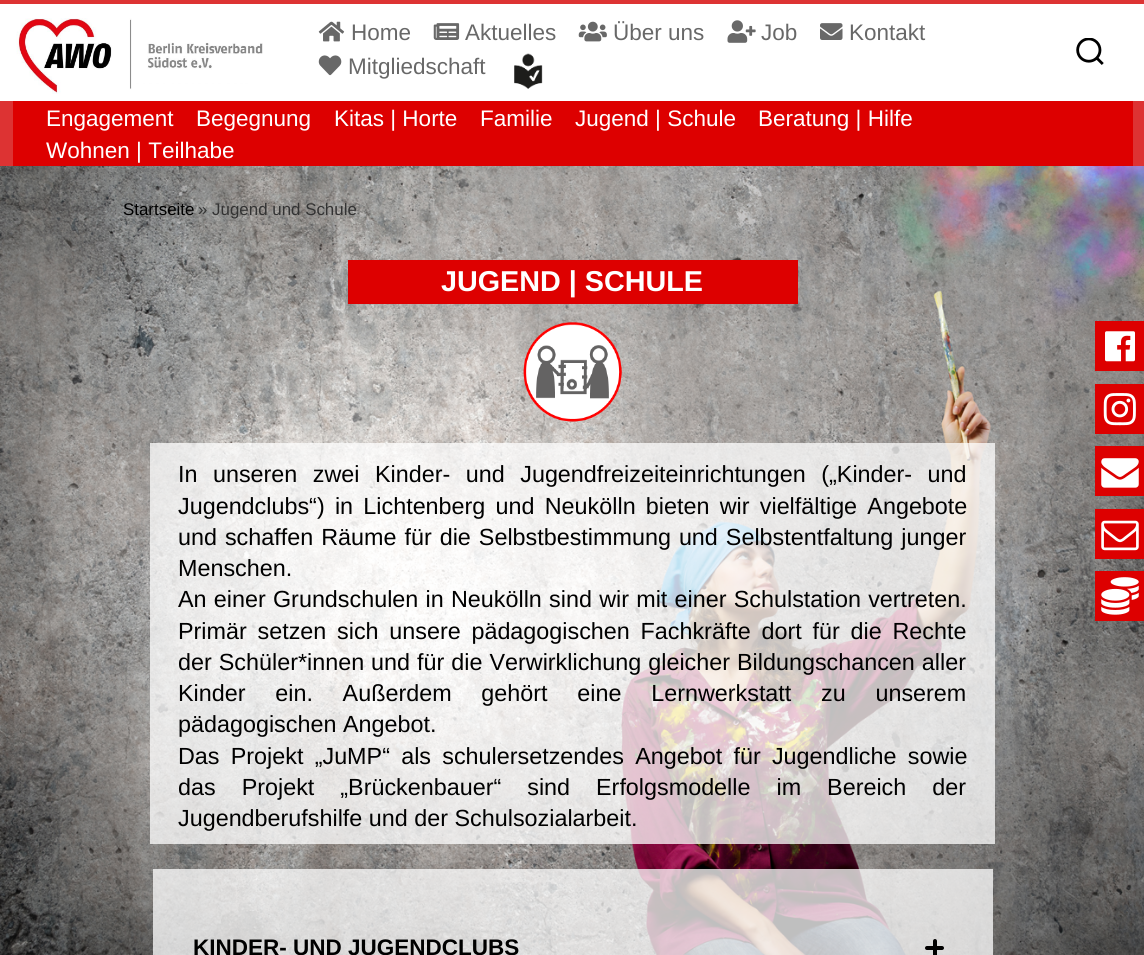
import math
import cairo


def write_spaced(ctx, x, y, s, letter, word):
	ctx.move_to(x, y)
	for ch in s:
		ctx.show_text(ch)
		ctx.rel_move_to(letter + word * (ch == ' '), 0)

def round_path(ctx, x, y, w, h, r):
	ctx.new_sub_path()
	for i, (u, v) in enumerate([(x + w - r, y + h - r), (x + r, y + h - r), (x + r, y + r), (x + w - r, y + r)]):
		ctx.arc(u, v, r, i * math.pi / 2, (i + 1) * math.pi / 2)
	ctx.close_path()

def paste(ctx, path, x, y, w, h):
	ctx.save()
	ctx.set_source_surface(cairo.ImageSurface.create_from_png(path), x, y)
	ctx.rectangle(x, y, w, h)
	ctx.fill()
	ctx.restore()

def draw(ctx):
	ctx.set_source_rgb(1, 1, 1)
	ctx.paint()
	paste(ctx, 'media/1.png', 0, 166, 1144, 789)
	ctx.set_source_rgb(0.867, 0.2, 0.2)
	ctx.rectangle(0, 0, 1144, 4)
	ctx.fill()
	paste(ctx, 'media/2.png', 16, 18, 247, 76)
	paste(ctx, 'media/3.png', 318, 21, 27, 21)
	ctx.select_font_face('Liberation Sans')
	ctx.set_font_size(22.5)
	ctx.set_source_rgb(0.408, 0.408, 0.408)
	ctx.move_to(351, 40)
	ctx.show_text('Home')
	paste(ctx, 'media/4.png', 433, 23, 27, 17)
	ctx.move_to(465, 40)
	ctx.show_text('Aktuelles')
	paste(ctx, 'media/5.png', 578, 21, 29, 21)
	ctx.move_to(613, 40)
	ctx.show_text('Über uns')
	paste(ctx, 'media/6.png', 727, 20, 29, 23)
	ctx.move_to(761, 40)
	ctx.show_text('Job')
	paste(ctx, 'media/7.png', 820, 23, 23, 17)
	ctx.move_to(849, 40)
	ctx.show_text('Kontakt')
	paste(ctx, 'media/8.png', 318, 55, 24, 21)
	ctx.move_to(348, 74)
	ctx.show_text('Mitgliedschaft')
	paste(ctx, 'media/9.png', 514, 53, 29, 36)
	paste(ctx, 'media/10.png', 1076, 38, 28, 27)
	ctx.set_source_rgb(0.867, 0.2, 0.2)
	ctx.rectangle(0, 101, 1144, 65)
	ctx.fill()
	ctx.set_source_rgb(0.867, 0, 0)
	ctx.rectangle(13, 101, 1120, 65)
	ctx.fill()
	ctx.set_source_rgb(1, 1, 1)
	for x, y, s in [
		(46, 126, 'Engagement'),
		(196, 126, 'Begegnung'),
		(334, 126, 'Kitas | Horte'),
		(480, 126, 'Familie'),
		(575, 126, 'Jugend | Schule'),
		(758, 126, 'Beratung | Hilfe'),
		(46, 158, 'Wohnen | Teilhabe'),
	]:
		ctx.move_to(x, y)
		ctx.show_text(s)
	ctx.set_font_size(16.9)
	ctx.set_source_rgb(0, 0, 0)
	ctx.move_to(123, 215)
	ctx.show_text('Startseite')
	ctx.set_source_rgb(0.2, 0.2, 0.2)
	ctx.move_to(198, 215)
	ctx.show_text('» Jugend und Schule')
	ctx.set_source_rgb(0.867, 0, 0)
	ctx.rectangle(348, 260, 450, 44)
	ctx.fill()
	ctx.select_font_face('Liberation Sans', cairo.FONT_SLANT_NORMAL, cairo.FONT_WEIGHT_BOLD)
	ctx.set_font_size(28.75)
	ctx.set_source_rgb(1, 1, 1)
	ctx.move_to(441, 291)
	ctx.show_text('JUGEND | SCHULE')
	paste(ctx, 'media/11.png', 523, 322, 99, 100)
	ctx.set_source_rgba(1, 1, 1, 0.75)
	ctx.rectangle(150, 443, 845, 401)
	ctx.fill()
	ctx.select_font_face('Liberation Sans')
	ctx.set_font_size(23.35)
	ctx.set_source_rgb(0, 0, 0)
	write_spaced(ctx, 178, 482, 'In unseren zwei Kinder- und Jugendfreizeiteinrichtungen („Kinder- und', 0, 9)
	write_spaced(ctx, 178, 514, 'Jugendclubs“) in Lichtenberg und Neukölln bieten wir vielfältige Angebote', 0, 3.75)
	write_spaced(ctx, 178, 545, 'und schaffen Räume für die Selbstbestimmung und Selbstentfaltung junger', 0, 1.5)
	ctx.move_to(178, 576)
	ctx.show_text('Menschen.')
	write_spaced(ctx, 178, 607, 'An einer Grundschulen in Neukölln sind wir mit einer Schulstation vertreten.', 0, 0.75)
	write_spaced(ctx, 178, 639, 'Primär setzen sich unsere pädagogischen Fachkräfte dort für die Rechte', 0, 4.25)
	write_spaced(ctx, 178, 670, 'der Schüler*innen und für die Verwirklichung gleicher Bildungschancen aller', 0, 0.5)
	write_spaced(ctx, 178, 701, 'Kinder ein. Außerdem gehört eine Lernwerkstatt zu unserem', 0, 23.25)
	ctx.move_to(178, 732)
	ctx.show_text('pädagogischen Angebot.')
	write_spaced(ctx, 178, 764, 'Das Projekt „JuMP“ als schulersetzendes Angebot für Jugendliche sowie', 0, 4.75)
	write_spaced(ctx, 178, 795, 'das Projekt „Brückenbauer“ sind Erfolgsmodelle im Bereich der', 0, 19.5)
	ctx.move_to(178, 826)
	ctx.show_text('Jugendberufshilfe und der Schulsozialarbeit.')
	ctx.set_source_rgba(1, 1, 1, 0.75)
	ctx.rectangle(153, 869, 840, 86)
	ctx.fill()
	ctx.select_font_face('Liberation Sans', cairo.FONT_SLANT_NORMAL, cairo.FONT_WEIGHT_BOLD)
	ctx.set_font_size(22.5)
	ctx.set_source_rgb(0, 0, 0)
	ctx.move_to(193, 955)
	ctx.show_text('KINDER- UND JUGENDCLUBS')
	round_path(ctx, 933, 939, 4, 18, 2)
	ctx.fill()
	round_path(ctx, 925, 946, 19, 4, 2)
	ctx.fill()
	ctx.set_source_rgb(0.867, 0, 0)
	ctx.rectangle(1095, 321, 49, 50)
	ctx.fill()
	paste(ctx, 'media/12.png', 1105, 331, 30, 31)
	ctx.rectangle(1095, 384, 49, 50)
	ctx.fill()
	paste(ctx, 'media/13.png', 1103, 393, 33, 33)
	ctx.rectangle(1095, 446, 49, 50)
	ctx.fill()
	paste(ctx, 'media/14.png', 1101, 458, 38, 30)
	ctx.rectangle(1095, 509, 49, 50)
	ctx.fill()
	paste(ctx, 'media/15.png', 1101, 520, 38, 31)
	ctx.rectangle(1095, 571, 49, 50)
	ctx.fill()
	paste(ctx, 'media/16.png', 1101, 577, 38, 38)


surface = cairo.ImageSurface(cairo.FORMAT_RGB24, 1144, 955)
ctx = cairo.Context(surface)
options = cairo.FontOptions()
options.set_hint_metrics(cairo.HINT_METRICS_OFF)
options.set_hint_style(cairo.HINT_STYLE_NONE)
ctx.set_font_options(options)
ctx.set_miter_limit(4)
draw(ctx)
surface.write_to_png('image.png')
